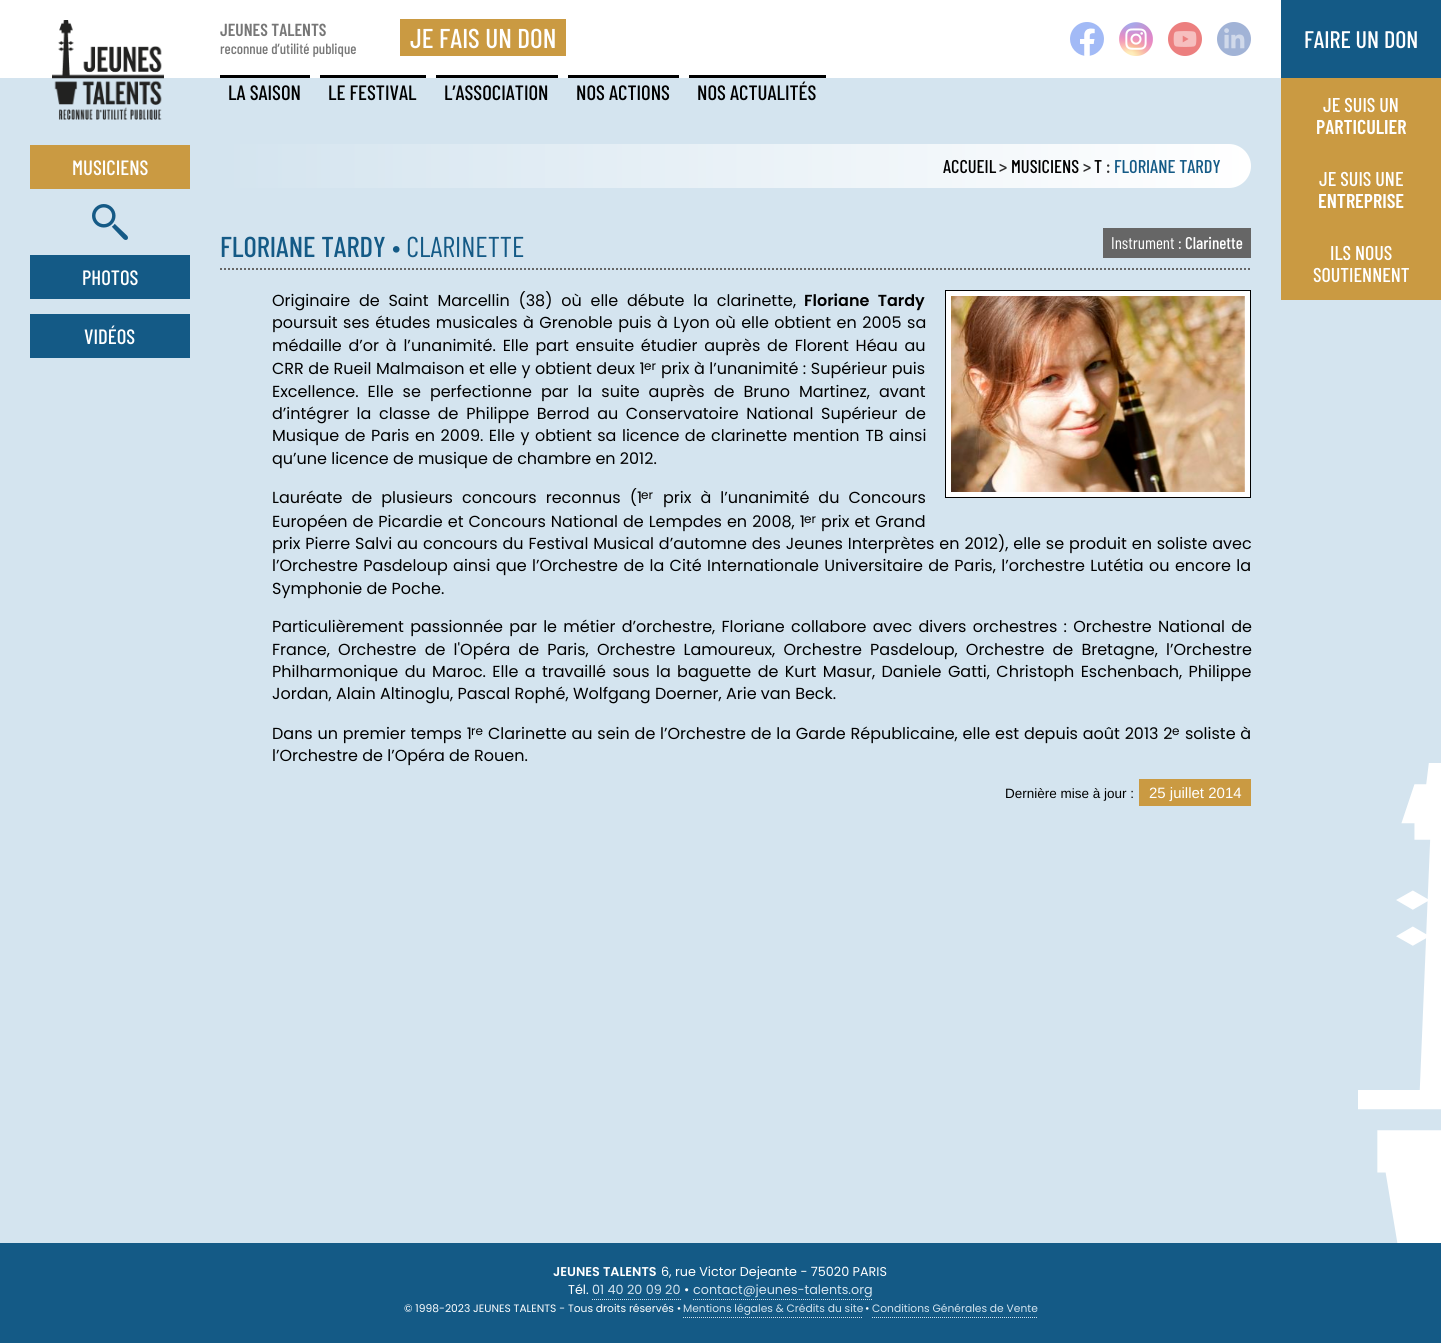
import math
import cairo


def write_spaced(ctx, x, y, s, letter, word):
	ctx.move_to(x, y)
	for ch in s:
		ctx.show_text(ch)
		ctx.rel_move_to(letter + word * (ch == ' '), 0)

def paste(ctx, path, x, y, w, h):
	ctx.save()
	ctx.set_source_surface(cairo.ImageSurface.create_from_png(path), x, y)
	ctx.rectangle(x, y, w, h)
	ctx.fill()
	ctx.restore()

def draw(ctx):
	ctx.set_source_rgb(0.831, 0.894, 0.937)
	ctx.paint()
	paste(ctx, 'media/1.png', 1358, 763, 83, 480)
	ctx.set_source_rgb(1, 1, 1)
	ctx.rectangle(0, 0, 1281, 78)
	ctx.fill()
	paste(ctx, 'media/2.png', 52, 20, 112, 100)
	ctx.select_font_face('Barlow Condensed SemiBold')
	ctx.set_font_size(17.5)
	ctx.set_source_rgb(0.467, 0.467, 0.467)
	ctx.move_to(220, 36)
	ctx.show_text('JEUNES TALENTS')
	ctx.select_font_face('Barlow Condensed Medium')
	ctx.set_font_size(14.75)
	ctx.move_to(220, 54)
	ctx.show_text('reconnue d’utilité publique')
	ctx.set_source_rgb(0.792, 0.604, 0.259)
	ctx.rectangle(400, 19, 166, 37)
	ctx.fill()
	ctx.set_font_size(27.25)
	ctx.set_source_rgb(1, 1, 1)
	ctx.move_to(410, 48)
	ctx.show_text('JE FAIS UN DON')
	paste(ctx, 'media/3.png', 1070, 22, 34, 34)
	paste(ctx, 'media/4.png', 1119, 22, 34, 34)
	paste(ctx, 'media/5.png', 1168, 22, 34, 34)
	paste(ctx, 'media/6.png', 1217, 22, 34, 34)
	ctx.set_source_rgb(0.082, 0.353, 0.525)
	ctx.rectangle(1281, 0, 160, 78)
	ctx.fill()
	ctx.set_font_size(24)
	ctx.set_source_rgb(1, 1, 1)
	ctx.move_to(1304, 48)
	ctx.show_text('FAIRE UN DON')
	ctx.set_source_rgb(0.792, 0.604, 0.259)
	ctx.rectangle(1281, 78, 160, 222)
	ctx.fill()
	ctx.set_font_size(20)
	ctx.set_source_rgb(1, 1, 1)
	ctx.move_to(1323, 112)
	ctx.show_text('JE SUIS UN')
	ctx.select_font_face('Barlow Condensed SemiBold')
	ctx.move_to(1316, 134)
	ctx.show_text('PARTICULIER')
	ctx.select_font_face('Barlow Condensed Medium')
	ctx.move_to(1319, 186)
	ctx.show_text('JE SUIS UNE')
	ctx.select_font_face('Barlow Condensed SemiBold')
	ctx.move_to(1318, 208)
	ctx.show_text('ENTREPRISE')
	ctx.select_font_face('Barlow Condensed Medium')
	ctx.move_to(1330, 260)
	ctx.show_text('ILS NOUS')
	ctx.move_to(1313, 282)
	ctx.show_text('SOUTIENNENT')
	ctx.set_source_rgb(0, 0, 0)
	ctx.rectangle(220, 75, 90, 3)
	ctx.fill()
	ctx.set_font_size(20.75)
	ctx.move_to(228, 100)
	ctx.show_text('LA SAISON')
	ctx.rectangle(320, 75, 106, 3)
	ctx.fill()
	ctx.move_to(328, 100)
	ctx.show_text('LE FESTIVAL')
	ctx.rectangle(436, 75, 122, 3)
	ctx.fill()
	ctx.move_to(444, 100)
	ctx.show_text('L’ASSOCIATION')
	ctx.rectangle(568, 75, 111, 3)
	ctx.fill()
	ctx.move_to(576, 100)
	ctx.show_text('NOS ACTIONS')
	ctx.rectangle(689, 75, 137, 3)
	ctx.fill()
	ctx.move_to(697, 100)
	ctx.show_text('NOS ACTUALITÉS')
	ctx.set_source_rgb(0.792, 0.604, 0.259)
	ctx.rectangle(30, 145, 160, 44)
	ctx.fill()
	ctx.set_source_rgb(1, 1, 1)
	ctx.move_to(72, 175)
	ctx.show_text('MUSICIENS')
	paste(ctx, 'media/7.png', 92, 204, 36, 36)
	ctx.set_source_rgb(0.082, 0.353, 0.525)
	ctx.rectangle(30, 255, 160, 44)
	ctx.fill()
	ctx.set_source_rgb(1, 1, 1)
	ctx.move_to(82, 285)
	ctx.show_text('PHOTOS')
	ctx.set_source_rgb(0.082, 0.353, 0.525)
	ctx.rectangle(30, 314, 160, 44)
	ctx.fill()
	ctx.set_source_rgb(1, 1, 1)
	ctx.move_to(84, 344)
	ctx.show_text('VIDÉOS')
	gradient = cairo.LinearGradient(1251, 166, 220, 166)
	gradient.add_color_stop_rgba(0, 1, 1, 1, 1)
	gradient.add_color_stop_rgba(1, 0.831, 0.894, 0.937, 1)
	ctx.set_source(gradient)
	ctx.new_path()
	ctx.move_to(220, 144)
	ctx.line_to(1229, 144)
	ctx.curve_to(1241, 144, 1251, 154, 1251, 166)
	ctx.curve_to(1251, 178, 1241, 188, 1229, 188)
	ctx.line_to(220, 188)
	ctx.close_path()
	ctx.fill()
	ctx.set_font_size(18.5)
	ctx.set_source_rgb(0, 0, 0)
	ctx.move_to(943, 173)
	ctx.show_text('ACCUEIL')
	ctx.set_source_rgb(0.188, 0.188, 0.188)
	ctx.move_to(999, 173)
	ctx.show_text('>')
	ctx.set_source_rgb(0, 0, 0)
	ctx.move_to(1011, 173)
	ctx.show_text('MUSICIENS')
	ctx.set_source_rgb(0.188, 0.188, 0.188)
	ctx.move_to(1083, 173)
	ctx.show_text('>')
	ctx.set_source_rgb(0, 0, 0)
	ctx.move_to(1094, 173)
	ctx.show_text('T')
	ctx.set_source_rgb(0.188, 0.188, 0.188)
	ctx.move_to(1106, 173)
	ctx.show_text(':')
	ctx.set_source_rgb(0.082, 0.353, 0.525)
	ctx.move_to(1114, 173)
	ctx.show_text('FLORIANE TARDY')
	ctx.new_path()
	ctx.move_to(220, 269)
	ctx.line_to(1251, 269)
	ctx.set_source_rgb(0.4, 0.4, 0.4)
	ctx.set_dash([2, 2])
	ctx.stroke()
	ctx.set_font_size(28.75)
	ctx.set_source_rgb(0.082, 0.353, 0.525)
	ctx.move_to(220, 257)
	ctx.show_text('FLORIANE TARDY')
	ctx.select_font_face('Barlow Condensed')
	ctx.move_to(392, 257)
	ctx.show_text('• CLARINETTE')
	ctx.set_source_rgb(0.4, 0.4, 0.4)
	ctx.rectangle(1103, 228, 148, 30)
	ctx.fill()
	ctx.set_font_size(17)
	ctx.set_source_rgb(1, 1, 1)
	ctx.move_to(1111, 249)
	ctx.show_text('Instrument :')
	ctx.select_font_face('Barlow Condensed Medium')
	ctx.move_to(1185, 249)
	ctx.show_text('Clarinette')
	ctx.select_font_face('Poppins')
	ctx.set_font_size(16)
	ctx.set_source_rgb(0, 0, 0)
	write_spaced(ctx, 272, 306, 'Originaire de Saint Marcellin (38) où elle débute la clarinette,', 0, 4.5)
	ctx.select_font_face('Poppins SemiBold')
	write_spaced(ctx, 804, 306, 'Floriane Tardy', 0, 4.5)
	ctx.select_font_face('Poppins')
	write_spaced(ctx, 272, 328, 'poursuit ses études musicales à Grenoble puis à Lyon où elle obtient en 2005 sa', 0, 1.2)
	write_spaced(ctx, 272, 351, 'médaille d’or à l’unanimité. Elle part ensuite étudier auprès de Florent Héau au', 0, 2.5)
	write_spaced(ctx, 272, 374, 'CRR de Rueil Malmaison et elle y obtient deux 1', 0, 0.25)
	ctx.set_font_size(12)
	ctx.move_to(644, 370)
	ctx.show_text('er')
	ctx.set_font_size(16)
	write_spaced(ctx, 661, 374, 'prix à l’unanimité : Supérieur puis', 0, 0.25)
	write_spaced(ctx, 272, 397, 'Excellence. Elle se perfectionne par la suite auprès de Bruno Martinez, avant', 0, 4.75)
	write_spaced(ctx, 272, 419, 'd’intégrer la classe de Philippe Berrod au Conservatoire National Supérieur de', 0, 3.4)
	write_spaced(ctx, 272, 441, 'Musique de Paris en 2009. Elle y obtient sa licence de clarinette mention TB ainsi', 0, 1.25)
	ctx.move_to(272, 464)
	ctx.show_text('qu’une licence de musique de chambre en 2012.')
	ctx.set_source_rgb(1, 1, 1)
	ctx.rectangle(945.5, 290.5, 305, 207)
	ctx.fill_preserve()
	ctx.set_source_rgb(0, 0, 0)
	ctx.set_line_width(1)
	ctx.set_dash([])
	ctx.stroke()
	paste(ctx, 'media/8.png', 951, 296, 294, 196)
	write_spaced(ctx, 272, 503, 'Lauréate de plusieurs concours reconnus (1', 0, 4.75)
	ctx.set_font_size(12)
	ctx.move_to(641, 499)
	ctx.show_text('er')
	ctx.set_font_size(16)
	write_spaced(ctx, 663, 503, 'prix à l’unanimité du Concours', 0, 4.75)
	write_spaced(ctx, 272, 527, 'Européen de Picardie et Concours National de Lempdes en 2008, 1', 0, 0.75)
	ctx.set_font_size(12)
	ctx.move_to(804, 523)
	ctx.show_text('er')
	ctx.set_font_size(16)
	write_spaced(ctx, 821, 527, 'prix et Grand', 0, 0.75)
	write_spaced(ctx, 272, 549, 'prix Pierre Salvi au concours du Festival Musical d’automne des Jeunes Interprètes en 2012), elle se produit en soliste avec', 0, 0.6)
	write_spaced(ctx, 272, 571, 'l’Orchestre Pasdeloup ainsi que l’Orchestre de la Cité Internationale Universitaire de Paris, l’orchestre Lutétia ou encore la', 0, 1.1)
	ctx.move_to(272, 594)
	ctx.show_text('Symphonie de Poche.')
	write_spaced(ctx, 272, 632, 'Particulièrement passionnée par le métier d’orchestre, Floriane collabore avec divers orchestres : Orchestre National de', 0, 2)
	write_spaced(ctx, 272, 655, 'France, Orchestre de l\'Opéra de Paris, Orchestre Lamoureux, Orchestre Pasdeloup, Orchestre de Bretagne, l’Orchestre', 0, 3.9)
	write_spaced(ctx, 272, 677, 'Philharmonique du Maroc. Elle a travaillé sous la baguette de Kurt Masur, Daniele Gatti, Christoph Eschenbach, Philippe', 0, 2.1)
	ctx.move_to(272, 699)
	ctx.show_text('Jordan, Alain Altinoglu, Pascal Rophé, Wolfgang Doerner, Arie van Beck.')
	write_spaced(ctx, 272, 739, 'Dans un premier temps 1', 0, 0.5)
	ctx.set_font_size(12)
	ctx.move_to(471, 735)
	ctx.show_text('re')
	ctx.set_font_size(16)
	write_spaced(ctx, 488, 739, 'Clarinette au sein de l’Orchestre de la Garde Républicaine, elle est depuis août 2013 2', 0, 0.5)
	ctx.set_font_size(12)
	ctx.move_to(1172, 735)
	ctx.show_text('e')
	ctx.set_font_size(16)
	write_spaced(ctx, 1185, 739, 'soliste à', 0, 0.5)
	ctx.move_to(272, 761)
	ctx.show_text('l’Orchestre de l’Opéra de Rouen.')
	ctx.select_font_face('Liberation Sans')
	ctx.set_font_size(13.5)
	ctx.move_to(1005, 798)
	ctx.show_text('Dernière mise à jour :')
	ctx.set_source_rgb(0.792, 0.604, 0.259)
	ctx.rectangle(1139, 779, 112, 27)
	ctx.fill()
	ctx.set_font_size(15)
	ctx.set_source_rgb(1, 1, 1)
	ctx.move_to(1149, 798)
	ctx.show_text('25 juillet 2014')
	ctx.set_source_rgb(0.082, 0.353, 0.525)
	ctx.rectangle(0, 1243, 1441, 100)
	ctx.fill()
	ctx.select_font_face('Poppins SemiBold')
	ctx.set_font_size(12.75)
	ctx.set_source_rgb(1, 1, 1)
	ctx.move_to(553, 1276)
	ctx.show_text('JEUNES TALENTS')
	ctx.select_font_face('Poppins')
	ctx.move_to(661, 1276)
	ctx.show_text('6, rue Victor Dejeante - 75020 PARIS')
	ctx.move_to(568, 1294)
	ctx.show_text('Tél.')
	ctx.set_source_rgb(0.831, 0.894, 0.937)
	ctx.move_to(592, 1294)
	ctx.show_text('01 40 20 09 20')
	ctx.new_path()
	ctx.move_to(592, 1299.5)
	ctx.line_to(681, 1299.5)
	ctx.set_dash([1, 1])
	ctx.stroke()
	ctx.set_source_rgb(1, 1, 1)
	ctx.move_to(684, 1294)
	ctx.show_text('•')
	ctx.set_source_rgb(0.831, 0.894, 0.937)
	ctx.move_to(693, 1294)
	ctx.show_text('contact@jeunes-talents.org')
	ctx.new_path()
	ctx.move_to(693, 1299.5)
	ctx.line_to(873, 1299.5)
	ctx.stroke()
	ctx.set_font_size(10.7)
	ctx.set_source_rgb(1, 1, 1)
	ctx.move_to(404, 1312)
	ctx.show_text('© 1998-2023 JEUNES TALENTS - Tous droits réservés •')
	ctx.set_source_rgb(0.831, 0.894, 0.937)
	ctx.move_to(683, 1312)
	ctx.show_text('Mentions légales & Crédits du site')
	ctx.new_path()
	ctx.move_to(683, 1317.5)
	ctx.line_to(862, 1317.5)
	ctx.stroke()
	ctx.set_source_rgb(1, 1, 1)
	ctx.move_to(865, 1312)
	ctx.show_text('•')
	ctx.set_source_rgb(0.831, 0.894, 0.937)
	ctx.move_to(872, 1312)
	ctx.show_text('Conditions Générales de Vente')
	ctx.new_path()
	ctx.move_to(872, 1317.5)
	ctx.line_to(1037, 1317.5)
	ctx.stroke()


surface = cairo.ImageSurface(cairo.FORMAT_RGB24, 1441, 1343)
ctx = cairo.Context(surface)
options = cairo.FontOptions()
options.set_hint_metrics(cairo.HINT_METRICS_OFF)
options.set_hint_style(cairo.HINT_STYLE_NONE)
ctx.set_font_options(options)
ctx.set_miter_limit(4)
draw(ctx)
surface.write_to_png('image.png')
